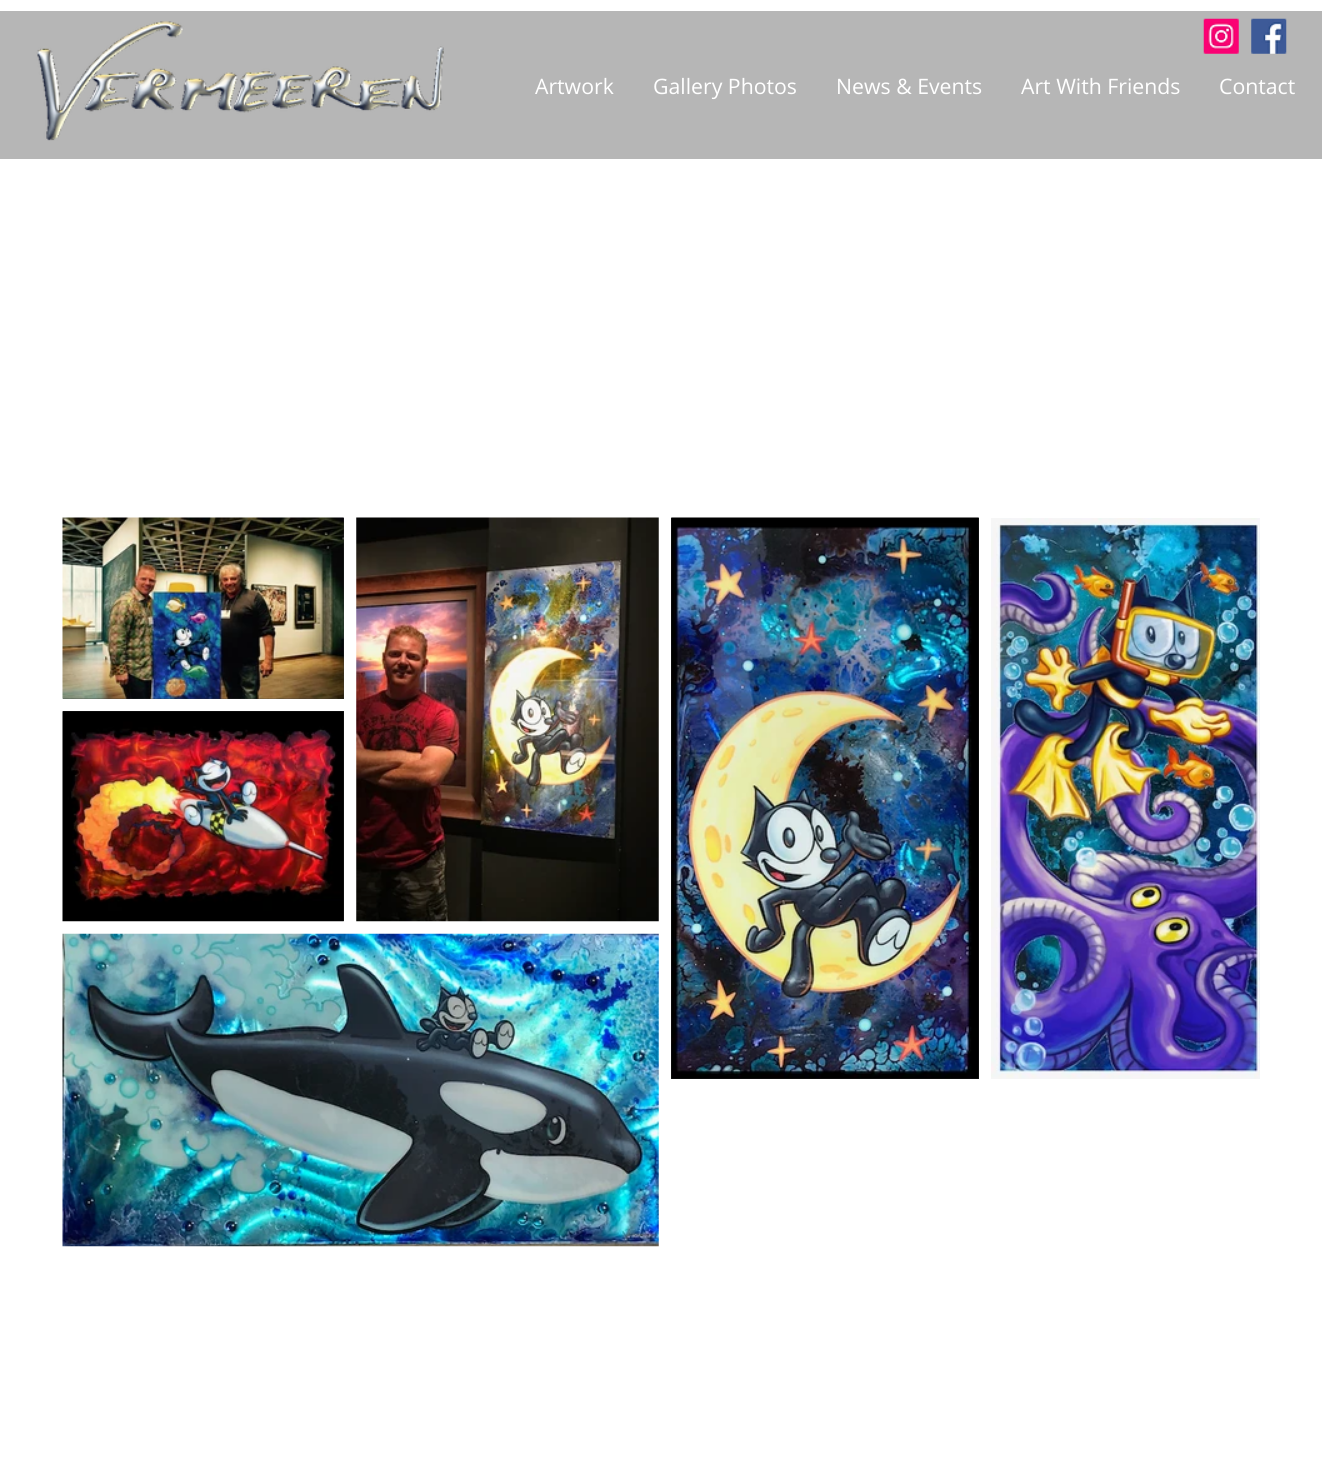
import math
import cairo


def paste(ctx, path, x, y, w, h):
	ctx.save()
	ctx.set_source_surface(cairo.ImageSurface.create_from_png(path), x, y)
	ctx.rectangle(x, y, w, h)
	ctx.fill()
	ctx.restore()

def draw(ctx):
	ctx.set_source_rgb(1, 1, 1)
	ctx.paint()
	ctx.set_source_rgb(0.714, 0.714, 0.714)
	ctx.rectangle(0, 11, 1322, 148)
	ctx.fill()
	paste(ctx, 'media/1.png', 36, 21, 408, 120)
	paste(ctx, 'media/2.png', 1203, 18, 36, 36)
	paste(ctx, 'media/3.png', 1251, 18, 36, 36)
	ctx.select_font_face('Open Sans')
	ctx.set_font_size(21.25)
	ctx.set_source_rgb(1, 1, 1)
	for x, y, s in [
		(535, 94, 'Artwork'),
		(653, 94, 'Gallery Photos'),
		(836, 94, 'News & Events'),
		(1021, 94, 'Art With Friends'),
		(1219, 94, 'Contact'),
	]:
		ctx.move_to(x, y)
		ctx.show_text(s)
	ctx.set_source_rgb(0.2, 0.2, 0.2)
	ctx.rectangle(63, 518, 281, 181)
	ctx.fill()
	paste(ctx, 'media/4.png', 62, 517, 282, 182)
	paste(ctx, 'media/5.png', 356, 517, 303, 405)
	ctx.rectangle(671, 518, 308, 561)
	ctx.fill()
	paste(ctx, 'media/6.png', 671, 517, 308, 562)
	paste(ctx, 'media/7.png', 991, 518, 269, 561)
	ctx.rectangle(63, 711, 281, 210)
	ctx.fill()
	paste(ctx, 'media/8.png', 62, 711, 282, 211)
	paste(ctx, 'media/9.png', 62, 933, 597, 314)


surface = cairo.ImageSurface(cairo.FORMAT_RGB24, 1322, 1471)
ctx = cairo.Context(surface)
options = cairo.FontOptions()
options.set_hint_metrics(cairo.HINT_METRICS_OFF)
options.set_hint_style(cairo.HINT_STYLE_NONE)
ctx.set_font_options(options)
ctx.set_miter_limit(4)
draw(ctx)
surface.write_to_png('image.png')
